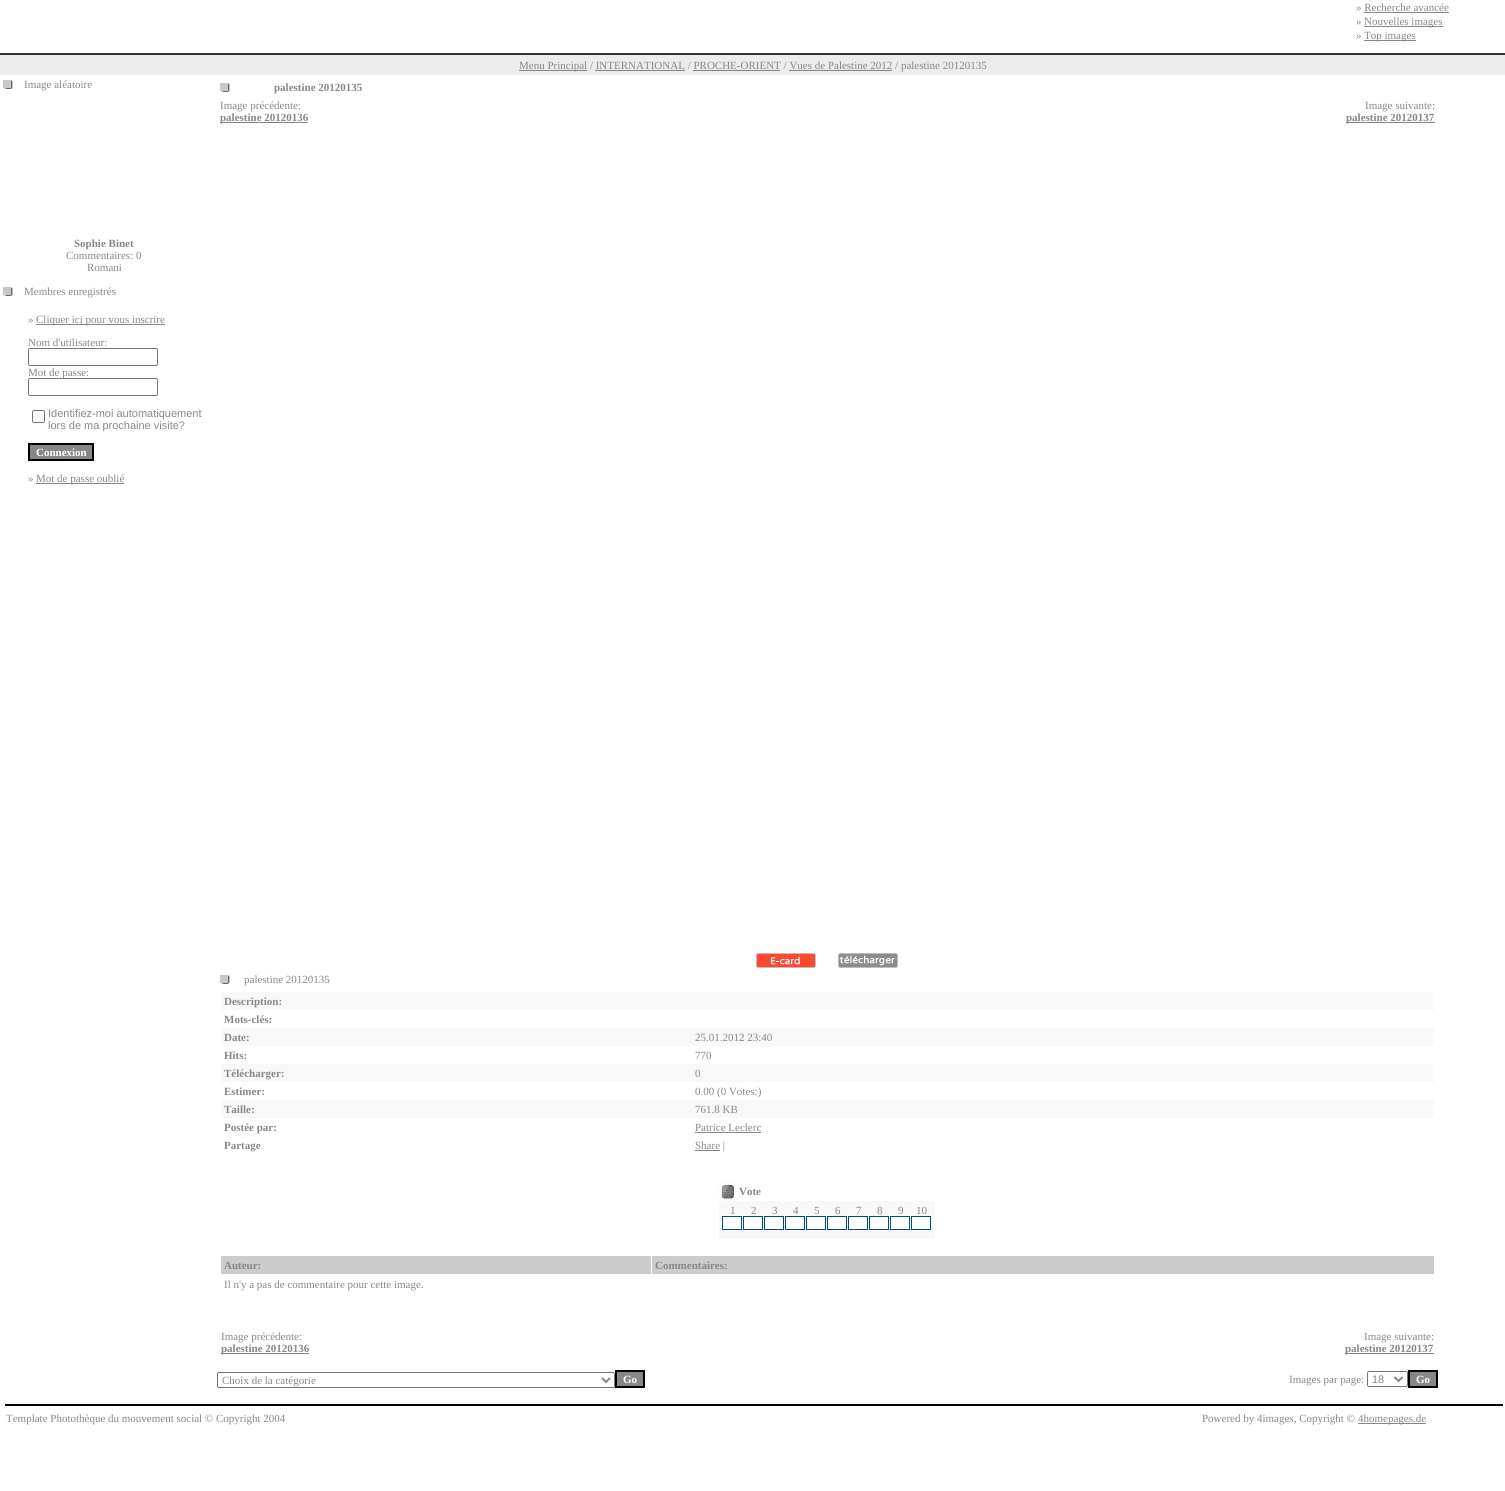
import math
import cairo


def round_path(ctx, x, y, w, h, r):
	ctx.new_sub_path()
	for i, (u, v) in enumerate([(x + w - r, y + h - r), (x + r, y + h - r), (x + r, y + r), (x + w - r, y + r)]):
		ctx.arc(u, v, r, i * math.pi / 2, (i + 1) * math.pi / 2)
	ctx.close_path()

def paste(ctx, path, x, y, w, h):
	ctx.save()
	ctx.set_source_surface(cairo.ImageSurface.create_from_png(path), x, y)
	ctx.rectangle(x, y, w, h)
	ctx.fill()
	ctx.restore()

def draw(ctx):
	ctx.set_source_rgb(1, 1, 1)
	ctx.paint()
	ctx.select_font_face('Liberation Serif')
	ctx.set_font_size(11)
	ctx.set_source_rgb(0.529, 0.529, 0.529)
	ctx.move_to(1356, 11)
	ctx.show_text('» Recherche avancée')
	ctx.rectangle(1364, 12, 85, 1)
	ctx.fill()
	ctx.move_to(1356, 25)
	ctx.show_text('»')
	ctx.rectangle(1364, 26, 79, 1)
	ctx.fill()
	ctx.move_to(1364, 25)
	ctx.show_text('Nouvelles images')
	ctx.move_to(1356, 39)
	ctx.show_text('»')
	ctx.rectangle(1364, 40, 52, 1)
	ctx.fill()
	ctx.move_to(1364, 39)
	ctx.show_text('Top images')
	ctx.set_source_rgb(0.2, 0.2, 0.2)
	ctx.rectangle(0, 53, 1505, 2)
	ctx.fill()
	ctx.set_source_rgb(0.922, 0.922, 0.922)
	ctx.rectangle(0, 55, 1505, 20)
	ctx.fill()
	ctx.set_source_rgb(0.529, 0.529, 0.529)
	ctx.rectangle(519, 70, 68, 1)
	ctx.fill()
	ctx.move_to(519, 69)
	ctx.show_text('Menu Principal / INTERNATIONAL / PROCHE-ORIENT / Vues de Palestine 2012 / palestine 20120135')
	ctx.rectangle(595, 70, 90, 1)
	ctx.rectangle(693, 70, 87, 1)
	ctx.rectangle(789, 70, 103, 1)
	ctx.fill()
	paste(ctx, 'media/1.png', 3, 80, 10, 9)
	ctx.move_to(24, 88)
	ctx.show_text('Image aléatoire')
	ctx.select_font_face('Liberation Serif', cairo.FONT_SLANT_NORMAL, cairo.FONT_WEIGHT_BOLD)
	ctx.move_to(74, 247)
	ctx.show_text('Sophie Binet')
	ctx.select_font_face('Liberation Serif')
	ctx.move_to(66, 259)
	ctx.show_text('Commentaires: 0')
	ctx.move_to(87, 271)
	ctx.show_text('Romani')
	paste(ctx, 'media/1.png', 3, 287, 10, 9)
	ctx.move_to(24, 295)
	ctx.show_text('Membres enregistrés')
	ctx.move_to(28, 323)
	ctx.show_text('»')
	ctx.rectangle(36, 324, 129, 1)
	ctx.fill()
	ctx.move_to(36, 323)
	ctx.show_text('Cliquer ici pour vous inscrire')
	ctx.move_to(28, 346)
	ctx.show_text('Nom d\'utilisateur:')
	round_path(ctx, 28.5, 348.5, 129, 17, 1.5)
	ctx.set_source_rgb(0.463, 0.463, 0.463)
	ctx.set_line_width(1)
	ctx.stroke()
	ctx.set_source_rgb(0.529, 0.529, 0.529)
	ctx.move_to(28, 376)
	ctx.show_text('Mot de passe:')
	ctx.set_source_rgb(1, 1, 1)
	round_path(ctx, 28.5, 378.5, 129, 17, 1.5)
	ctx.fill_preserve()
	ctx.set_source_rgb(0.463, 0.463, 0.463)
	ctx.stroke()
	round_path(ctx, 32.5, 410.5, 12, 12, 1.5)
	ctx.stroke()
	ctx.select_font_face('Liberation Sans')
	ctx.set_source_rgb(0.529, 0.529, 0.529)
	ctx.move_to(48, 417)
	ctx.show_text('Identifiez-moi automatiquement')
	ctx.move_to(48, 429)
	ctx.show_text('lors de ma prochaine visite?')
	ctx.rectangle(29, 444, 64, 16)
	ctx.fill_preserve()
	ctx.set_source_rgb(0, 0, 0)
	ctx.set_line_width(2)
	ctx.stroke()
	ctx.select_font_face('Liberation Serif', cairo.FONT_SLANT_NORMAL, cairo.FONT_WEIGHT_BOLD)
	ctx.set_source_rgb(1, 1, 1)
	ctx.move_to(36, 456)
	ctx.show_text('Connexion')
	ctx.select_font_face('Liberation Serif')
	ctx.set_source_rgb(0.529, 0.529, 0.529)
	ctx.move_to(28, 482)
	ctx.show_text('»')
	ctx.rectangle(36, 483, 88, 1)
	ctx.fill()
	ctx.move_to(36, 482)
	ctx.show_text('Mot de passe oublié')
	paste(ctx, 'media/1.png', 220, 83, 10, 9)
	ctx.select_font_face('Liberation Serif', cairo.FONT_SLANT_NORMAL, cairo.FONT_WEIGHT_BOLD)
	ctx.move_to(274, 91)
	ctx.show_text('palestine 20120135')
	ctx.select_font_face('Liberation Serif')
	ctx.move_to(220, 109)
	ctx.show_text('Image précédente:')
	ctx.rectangle(220, 122, 88, 1)
	ctx.fill()
	ctx.select_font_face('Liberation Serif', cairo.FONT_SLANT_NORMAL, cairo.FONT_WEIGHT_BOLD)
	ctx.move_to(220, 121)
	ctx.show_text('palestine 20120136')
	ctx.select_font_face('Liberation Serif')
	ctx.move_to(1365, 109)
	ctx.show_text('Image suivante:')
	ctx.rectangle(1346, 122, 89, 1)
	ctx.fill()
	ctx.select_font_face('Liberation Serif', cairo.FONT_SLANT_NORMAL, cairo.FONT_WEIGHT_BOLD)
	ctx.move_to(1346, 121)
	ctx.show_text('palestine 20120137')
	paste(ctx, 'media/2.png', 756, 953, 60, 15)
	paste(ctx, 'media/3.png', 838, 953, 60, 15)
	paste(ctx, 'media/1.png', 220, 975, 10, 9)
	ctx.select_font_face('Liberation Serif')
	ctx.move_to(244, 983)
	ctx.show_text('palestine 20120135')
	ctx.set_source_rgb(0.969, 0.969, 0.969)
	ctx.rectangle(221, 992, 1213, 18)
	ctx.fill()
	ctx.select_font_face('Liberation Serif', cairo.FONT_SLANT_NORMAL, cairo.FONT_WEIGHT_BOLD)
	ctx.set_source_rgb(0.529, 0.529, 0.529)
	ctx.move_to(224, 1005)
	ctx.show_text('Description:')
	ctx.move_to(224, 1023)
	ctx.show_text('Mots-clés:')
	ctx.set_source_rgb(0.969, 0.969, 0.969)
	ctx.rectangle(221, 1028, 1213, 18)
	ctx.fill()
	ctx.set_source_rgb(0.529, 0.529, 0.529)
	ctx.move_to(224, 1041)
	ctx.show_text('Date:')
	ctx.select_font_face('Liberation Serif')
	ctx.move_to(695, 1041)
	ctx.show_text('25.01.2012 23:40')
	ctx.select_font_face('Liberation Serif', cairo.FONT_SLANT_NORMAL, cairo.FONT_WEIGHT_BOLD)
	ctx.move_to(224, 1059)
	ctx.show_text('Hits:')
	ctx.select_font_face('Liberation Serif')
	ctx.move_to(695, 1059)
	ctx.show_text('770')
	ctx.set_source_rgb(0.969, 0.969, 0.969)
	ctx.rectangle(221, 1064, 1213, 18)
	ctx.fill()
	ctx.select_font_face('Liberation Serif', cairo.FONT_SLANT_NORMAL, cairo.FONT_WEIGHT_BOLD)
	ctx.set_source_rgb(0.529, 0.529, 0.529)
	ctx.move_to(224, 1077)
	ctx.show_text('Télécharger:')
	ctx.select_font_face('Liberation Serif')
	ctx.move_to(695, 1077)
	ctx.show_text('0')
	ctx.select_font_face('Liberation Serif', cairo.FONT_SLANT_NORMAL, cairo.FONT_WEIGHT_BOLD)
	ctx.move_to(224, 1095)
	ctx.show_text('Estimer:')
	ctx.select_font_face('Liberation Serif')
	ctx.move_to(695, 1095)
	ctx.show_text('0.00 (0 Votes:)')
	ctx.set_source_rgb(0.969, 0.969, 0.969)
	ctx.rectangle(221, 1100, 1213, 18)
	ctx.fill()
	ctx.select_font_face('Liberation Serif', cairo.FONT_SLANT_NORMAL, cairo.FONT_WEIGHT_BOLD)
	ctx.set_source_rgb(0.529, 0.529, 0.529)
	ctx.move_to(224, 1113)
	ctx.show_text('Taille:')
	ctx.select_font_face('Liberation Serif')
	ctx.move_to(695, 1113)
	ctx.show_text('761.8 KB')
	ctx.select_font_face('Liberation Serif', cairo.FONT_SLANT_NORMAL, cairo.FONT_WEIGHT_BOLD)
	ctx.move_to(224, 1131)
	ctx.show_text('Postée par:')
	ctx.select_font_face('Liberation Serif')
	ctx.move_to(695, 1131)
	ctx.show_text('Patrice Leclerc')
	ctx.rectangle(695, 1132, 66, 1)
	ctx.fill()
	ctx.select_font_face('Liberation Serif', cairo.FONT_SLANT_NORMAL, cairo.FONT_WEIGHT_BOLD)
	ctx.move_to(224, 1149)
	ctx.show_text('Partage')
	ctx.rectangle(695, 1150, 25, 1)
	ctx.fill()
	ctx.select_font_face('Liberation Serif')
	ctx.move_to(695, 1149)
	ctx.show_text('Share |')
	paste(ctx, 'media/4.png', 718, 1182, 17, 18)
	ctx.select_font_face('Liberation Serif', cairo.FONT_SLANT_NORMAL, cairo.FONT_WEIGHT_BOLD)
	ctx.move_to(739, 1195)
	ctx.show_text('Vote')
	paste(ctx, 'media/5.png', 718, 1200, 17, 38)
	ctx.set_source_rgb(0.969, 0.969, 0.969)
	ctx.rectangle(719, 1201, 216, 38)
	ctx.fill()
	ctx.select_font_face('Liberation Serif')
	ctx.set_source_rgb(0.529, 0.529, 0.529)
	for x, y, s in [
		(730, 1214, '1'),
		(751, 1214, '2'),
		(772, 1214, '3'),
		(793, 1214, '4'),
		(814, 1214, '5'),
		(835, 1214, '6'),
		(856, 1214, '7'),
		(877, 1214, '8'),
		(898, 1214, '9'),
		(916, 1214, '10'),
	]:
		ctx.move_to(x, y)
		ctx.show_text(s)
	ctx.set_source_rgb(1, 1, 1)
	ctx.rectangle(722.5, 1216.5, 19, 13)
	ctx.fill_preserve()
	ctx.set_source_rgb(0, 0.298, 0.459)
	ctx.set_line_width(1)
	ctx.stroke()
	ctx.set_source_rgb(1, 1, 1)
	ctx.rectangle(743.5, 1216.5, 19, 13)
	ctx.fill_preserve()
	ctx.set_source_rgb(0, 0.298, 0.459)
	ctx.stroke()
	ctx.set_source_rgb(1, 1, 1)
	ctx.rectangle(764.5, 1216.5, 19, 13)
	ctx.fill_preserve()
	ctx.set_source_rgb(0, 0.298, 0.459)
	ctx.stroke()
	ctx.set_source_rgb(1, 1, 1)
	ctx.rectangle(785.5, 1216.5, 19, 13)
	ctx.fill_preserve()
	ctx.set_source_rgb(0, 0.298, 0.459)
	ctx.stroke()
	ctx.set_source_rgb(1, 1, 1)
	ctx.rectangle(806.5, 1216.5, 19, 13)
	ctx.fill_preserve()
	ctx.set_source_rgb(0, 0.298, 0.459)
	ctx.stroke()
	ctx.set_source_rgb(1, 1, 1)
	ctx.rectangle(827.5, 1216.5, 19, 13)
	ctx.fill_preserve()
	ctx.set_source_rgb(0, 0.298, 0.459)
	ctx.stroke()
	ctx.set_source_rgb(1, 1, 1)
	ctx.rectangle(848.5, 1216.5, 19, 13)
	ctx.fill_preserve()
	ctx.set_source_rgb(0, 0.298, 0.459)
	ctx.stroke()
	ctx.set_source_rgb(1, 1, 1)
	ctx.rectangle(869.5, 1216.5, 19, 13)
	ctx.fill_preserve()
	ctx.set_source_rgb(0, 0.298, 0.459)
	ctx.stroke()
	ctx.set_source_rgb(1, 1, 1)
	ctx.rectangle(890.5, 1216.5, 19, 13)
	ctx.fill_preserve()
	ctx.set_source_rgb(0, 0.298, 0.459)
	ctx.stroke()
	ctx.set_source_rgb(1, 1, 1)
	ctx.rectangle(911.5, 1216.5, 19, 13)
	ctx.fill_preserve()
	ctx.set_source_rgb(0, 0.298, 0.459)
	ctx.stroke()
	ctx.set_source_rgb(0.8, 0.8, 0.8)
	ctx.rectangle(221, 1256, 430, 18)
	ctx.fill()
	ctx.select_font_face('Liberation Serif', cairo.FONT_SLANT_NORMAL, cairo.FONT_WEIGHT_BOLD)
	ctx.set_source_rgb(0.529, 0.529, 0.529)
	ctx.move_to(224, 1269)
	ctx.show_text('Auteur:')
	ctx.set_source_rgb(0.8, 0.8, 0.8)
	ctx.rectangle(652, 1256, 782, 18)
	ctx.fill()
	ctx.set_source_rgb(0.529, 0.529, 0.529)
	ctx.move_to(655, 1269)
	ctx.show_text('Commentaires:')
	ctx.select_font_face('Liberation Serif')
	ctx.move_to(224, 1288)
	ctx.show_text('Il n\'y a pas de commentaire pour cette image.')
	ctx.move_to(221, 1340)
	ctx.show_text('Image précédente:')
	ctx.rectangle(221, 1353, 88, 1)
	ctx.fill()
	ctx.select_font_face('Liberation Serif', cairo.FONT_SLANT_NORMAL, cairo.FONT_WEIGHT_BOLD)
	ctx.move_to(221, 1352)
	ctx.show_text('palestine 20120136')
	ctx.select_font_face('Liberation Serif')
	ctx.move_to(1364, 1340)
	ctx.show_text('Image suivante:')
	ctx.rectangle(1345, 1353, 89, 1)
	ctx.fill()
	ctx.select_font_face('Liberation Serif', cairo.FONT_SLANT_NORMAL, cairo.FONT_WEIGHT_BOLD)
	ctx.move_to(1345, 1352)
	ctx.show_text('palestine 20120137')
	round_path(ctx, 217.5, 1372.5, 397, 15, 1.5)
	ctx.set_source_rgb(0.463, 0.463, 0.463)
	ctx.stroke()
	ctx.new_path()
	ctx.move_to(602, 1378)
	ctx.line_to(606, 1382)
	ctx.line_to(610, 1378)
	ctx.set_source_rgb(0.529, 0.529, 0.529)
	ctx.set_line_width(2)
	ctx.stroke()
	ctx.select_font_face('Liberation Serif')
	ctx.move_to(222, 1384)
	ctx.show_text('Choix de la catégorie')
	ctx.rectangle(616, 1371, 28, 16)
	ctx.fill_preserve()
	ctx.set_source_rgb(0, 0, 0)
	ctx.stroke()
	ctx.select_font_face('Liberation Serif', cairo.FONT_SLANT_NORMAL, cairo.FONT_WEIGHT_BOLD)
	ctx.set_source_rgb(1, 1, 1)
	ctx.move_to(623, 1383)
	ctx.show_text('Go')
	ctx.select_font_face('Liberation Serif')
	ctx.set_source_rgb(0.529, 0.529, 0.529)
	ctx.move_to(1289, 1383)
	ctx.show_text('Images par page:')
	round_path(ctx, 1367.5, 1371.5, 40, 15, 1.5)
	ctx.set_source_rgb(0.463, 0.463, 0.463)
	ctx.set_line_width(1)
	ctx.stroke()
	ctx.new_path()
	ctx.move_to(1394.5, 1377)
	ctx.line_to(1398.5, 1381)
	ctx.line_to(1402.5, 1377)
	ctx.set_source_rgb(0.529, 0.529, 0.529)
	ctx.set_line_width(2)
	ctx.stroke()
	ctx.select_font_face('Liberation Sans')
	ctx.move_to(1372, 1383)
	ctx.show_text('18')
	ctx.rectangle(1409, 1371, 28, 16)
	ctx.fill_preserve()
	ctx.set_source_rgb(0, 0, 0)
	ctx.stroke()
	ctx.select_font_face('Liberation Serif', cairo.FONT_SLANT_NORMAL, cairo.FONT_WEIGHT_BOLD)
	ctx.set_source_rgb(1, 1, 1)
	ctx.move_to(1416, 1383)
	ctx.show_text('Go')
	ctx.set_source_rgb(0, 0, 0)
	ctx.rectangle(5, 1404, 1498, 2)
	ctx.fill()
	ctx.select_font_face('Liberation Serif')
	ctx.set_source_rgb(0.529, 0.529, 0.529)
	ctx.move_to(6, 1422)
	ctx.show_text('Template Photothèque du mouvement social © Copyright 2004')
	ctx.move_to(1202, 1422)
	ctx.show_text('Powered by 4images, Copyright ©')
	ctx.rectangle(1358, 1423, 68, 1)
	ctx.fill()
	ctx.move_to(1358, 1422)
	ctx.show_text('4homepages.de')


surface = cairo.ImageSurface(cairo.FORMAT_RGB24, 1505, 1491)
ctx = cairo.Context(surface)
options = cairo.FontOptions()
options.set_hint_metrics(cairo.HINT_METRICS_OFF)
options.set_hint_style(cairo.HINT_STYLE_NONE)
ctx.set_font_options(options)
ctx.set_miter_limit(4)
draw(ctx)
surface.write_to_png('image.png')
